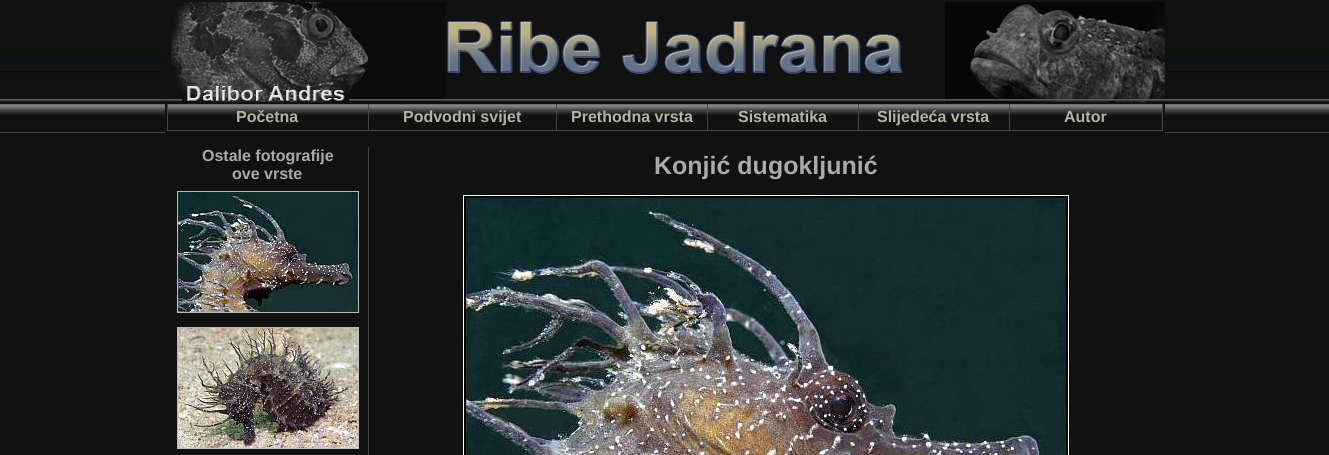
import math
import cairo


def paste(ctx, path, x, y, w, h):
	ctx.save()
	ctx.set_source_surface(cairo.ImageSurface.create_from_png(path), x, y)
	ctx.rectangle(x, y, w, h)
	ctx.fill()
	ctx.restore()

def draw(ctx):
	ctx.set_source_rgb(0.067, 0.067, 0.067)
	ctx.paint()
	paste(ctx, 'media/1.png', 0, 46, 1329, 87)
	paste(ctx, 'media/2.png', 165, 2, 1000, 100)
	ctx.set_source_rgb(0.067, 0.067, 0.067)
	ctx.rectangle(165, 104, 1000, 29)
	ctx.fill()
	paste(ctx, 'media/3.png', 168, 104, 200, 12)
	ctx.set_source_rgb(0.267, 0.267, 0.267)
	ctx.rectangle(167, 130, 842, 1)
	ctx.fill()
	ctx.rectangle(167, 104, 1, 27)
	ctx.fill()
	ctx.select_font_face('Liberation Sans', cairo.FONT_SLANT_NORMAL, cairo.FONT_WEIGHT_BOLD)
	ctx.set_font_size(16)
	ctx.set_source_rgb(0.718, 0.702, 0.643)
	ctx.move_to(236, 122)
	ctx.show_text('Početna')
	paste(ctx, 'media/4.png', 369, 104, 187, 12)
	ctx.set_source_rgb(0.267, 0.267, 0.267)
	ctx.rectangle(368, 104, 1, 27)
	ctx.fill()
	ctx.set_source_rgb(0.718, 0.702, 0.643)
	ctx.move_to(403, 122)
	ctx.show_text('Podvodni svijet')
	paste(ctx, 'media/5.png', 557, 104, 150, 12)
	ctx.set_source_rgb(0.267, 0.267, 0.267)
	ctx.rectangle(556, 104, 1, 27)
	ctx.fill()
	ctx.set_source_rgb(0.718, 0.702, 0.643)
	ctx.move_to(571, 122)
	ctx.show_text('Prethodna vrsta')
	paste(ctx, 'media/5.png', 708, 104, 150, 12)
	ctx.set_source_rgb(0.267, 0.267, 0.267)
	ctx.rectangle(707, 104, 1, 27)
	ctx.fill()
	ctx.set_source_rgb(0.718, 0.702, 0.643)
	ctx.move_to(738, 122)
	ctx.show_text('Sistematika')
	paste(ctx, 'media/5.png', 859, 104, 150, 12)
	ctx.set_source_rgb(0.267, 0.267, 0.267)
	ctx.rectangle(858, 104, 1, 27)
	ctx.fill()
	ctx.set_source_rgb(0.718, 0.702, 0.643)
	ctx.move_to(877, 122)
	ctx.show_text('Slijedeća vrsta')
	paste(ctx, 'media/6.png', 1010, 104, 152, 12)
	ctx.set_source_rgb(0.267, 0.267, 0.267)
	ctx.rectangle(1162, 104, 1, 27)
	ctx.rectangle(1009, 130, 154, 1)
	ctx.rectangle(1009, 104, 1, 27)
	ctx.fill()
	ctx.set_source_rgb(0.718, 0.702, 0.643)
	ctx.move_to(1064, 122)
	ctx.show_text('Autor')
	ctx.set_source_rgb(0.667, 0.667, 0.667)
	ctx.move_to(202, 161)
	ctx.show_text('Ostale fotografije')
	ctx.move_to(232, 179)
	ctx.show_text('ove vrste')
	ctx.rectangle(177.5, 191.5, 181, 121)
	ctx.set_source_rgb(0.733, 0.733, 0.733)
	ctx.set_line_width(1)
	ctx.stroke()
	paste(ctx, 'media/7.png', 178, 192, 180, 120)
	ctx.rectangle(177.5, 327.5, 181, 121)
	ctx.stroke()
	paste(ctx, 'media/8.png', 178, 328, 180, 120)
	ctx.set_source_rgb(0.267, 0.267, 0.267)
	ctx.rectangle(368, 147, 1, 308)
	ctx.fill()
	ctx.set_font_size(25)
	ctx.set_source_rgb(0.667, 0.667, 0.667)
	ctx.move_to(654, 174)
	ctx.show_text('Konjić dugokljunić')
	paste(ctx, 'media/9.png', 463, 195, 606, 260)


surface = cairo.ImageSurface(cairo.FORMAT_RGB24, 1329, 455)
ctx = cairo.Context(surface)
options = cairo.FontOptions()
options.set_hint_metrics(cairo.HINT_METRICS_OFF)
options.set_hint_style(cairo.HINT_STYLE_NONE)
ctx.set_font_options(options)
ctx.set_miter_limit(4)
draw(ctx)
surface.write_to_png('image.png')
